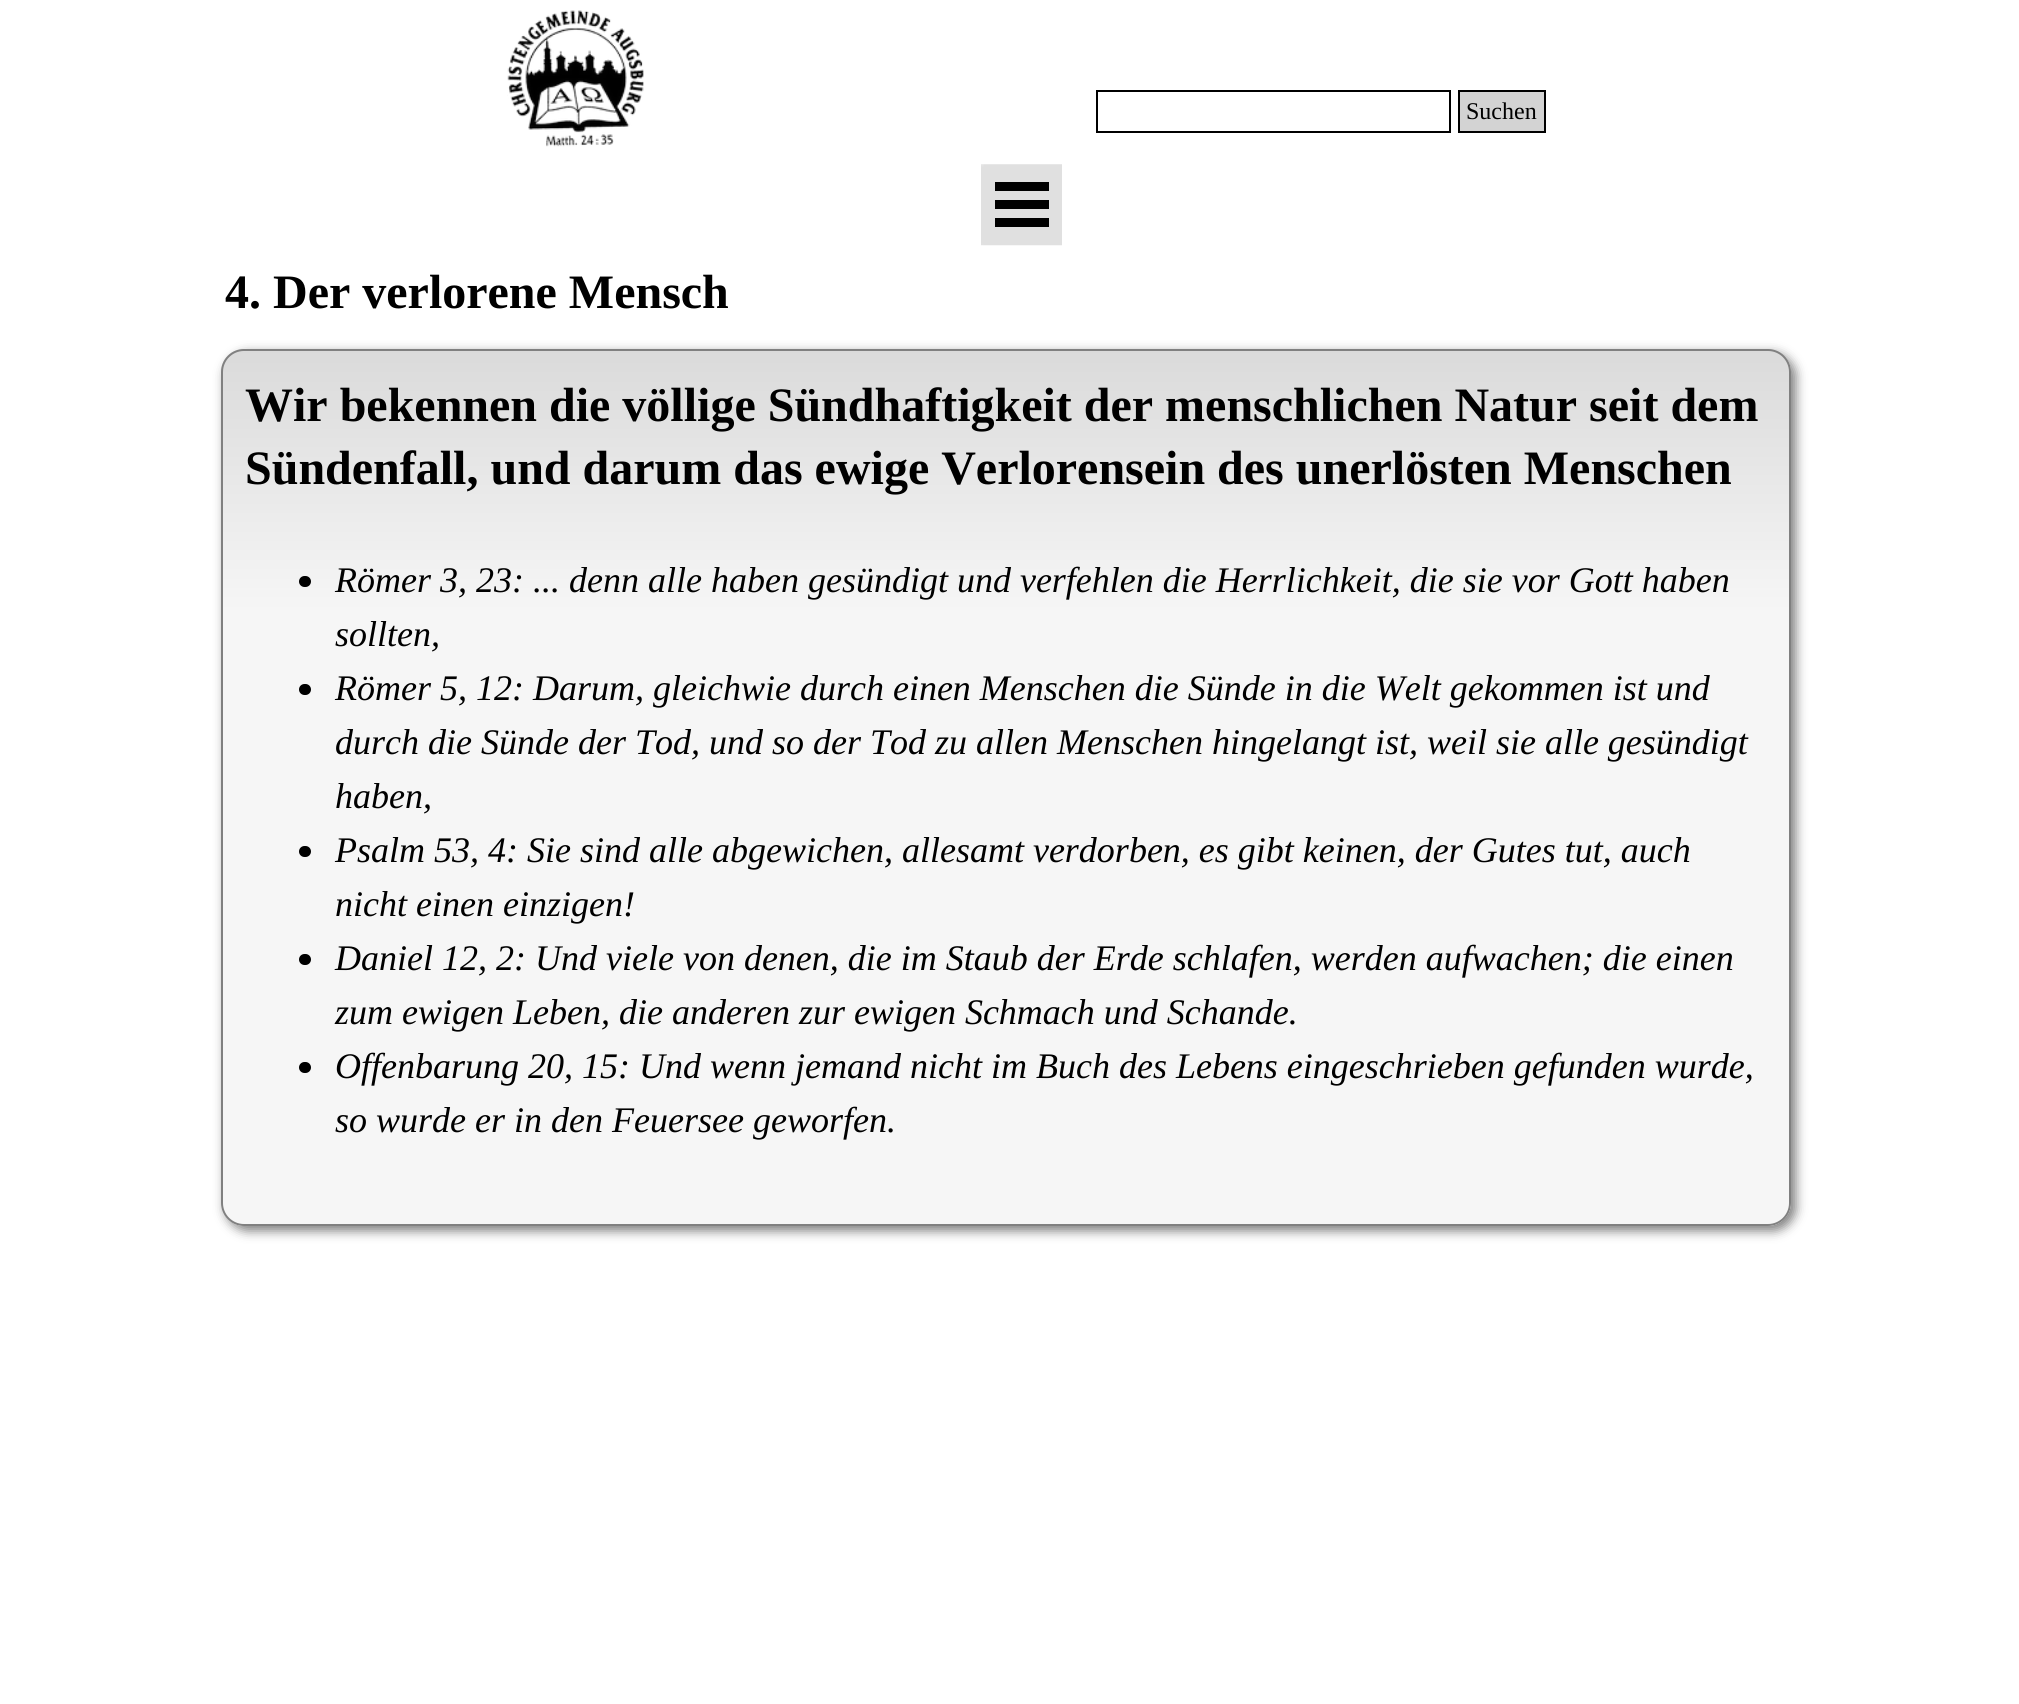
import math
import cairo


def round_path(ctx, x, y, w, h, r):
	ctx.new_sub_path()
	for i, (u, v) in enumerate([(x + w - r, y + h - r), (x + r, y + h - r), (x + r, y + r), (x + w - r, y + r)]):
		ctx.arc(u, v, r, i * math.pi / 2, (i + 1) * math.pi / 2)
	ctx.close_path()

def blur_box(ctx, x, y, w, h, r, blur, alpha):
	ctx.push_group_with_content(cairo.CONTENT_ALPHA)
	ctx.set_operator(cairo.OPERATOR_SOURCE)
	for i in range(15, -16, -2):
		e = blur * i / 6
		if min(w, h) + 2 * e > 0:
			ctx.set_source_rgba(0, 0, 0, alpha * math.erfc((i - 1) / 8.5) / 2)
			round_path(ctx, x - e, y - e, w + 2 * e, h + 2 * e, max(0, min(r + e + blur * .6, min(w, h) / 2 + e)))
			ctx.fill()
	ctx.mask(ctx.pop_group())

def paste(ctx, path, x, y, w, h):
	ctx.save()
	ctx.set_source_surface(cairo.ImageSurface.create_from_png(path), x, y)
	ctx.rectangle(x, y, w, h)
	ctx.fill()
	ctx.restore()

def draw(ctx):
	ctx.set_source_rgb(1, 1, 1)
	ctx.paint()
	paste(ctx, 'media/1.png', 507, 10, 137, 137)
	ctx.rectangle(1097, 91, 353, 41)
	ctx.set_source_rgb(0, 0, 0)
	ctx.stroke()
	ctx.set_source_rgb(0.827, 0.827, 0.827)
	ctx.rectangle(1459, 91, 86, 41)
	ctx.fill_preserve()
	ctx.set_source_rgb(0, 0, 0)
	ctx.stroke()
	ctx.select_font_face('Liberation Serif')
	ctx.set_font_size(24)
	ctx.move_to(1466, 119)
	ctx.show_text('Suchen')
	paste(ctx, 'media/2.png', 981, 164, 81, 82)
	ctx.rectangle(995, 182, 54, 9)
	ctx.rectangle(995, 200, 54, 9)
	ctx.rectangle(995, 218, 54, 9)
	ctx.fill()
	ctx.select_font_face('Liberation Serif', cairo.FONT_SLANT_NORMAL, cairo.FONT_WEIGHT_BOLD)
	ctx.set_font_size(48)
	ctx.move_to(225, 308)
	ctx.show_text('4. Der verlorene Mensch')
	gradient = cairo.LinearGradient(1006, 349, 1006, 1226)
	gradient.add_color_stop_rgba(0, 0.855, 0.855, 0.855, 1)
	gradient.add_color_stop_rgba(0.3, 0.965, 0.965, 0.965, 1)
	ctx.set_source(gradient)
	round_path(ctx, 221, 349, 1570, 877, 23)
	ctx.fill()
	ctx.save()
	ctx.set_fill_rule(cairo.FILL_RULE_EVEN_ODD)
	ctx.new_path()
	ctx.move_to(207, 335)
	ctx.line_to(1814, 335)
	ctx.line_to(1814, 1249)
	ctx.line_to(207, 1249)
	ctx.close_path()
	ctx.move_to(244, 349)
	ctx.line_to(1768, 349)
	ctx.curve_to(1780.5, 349, 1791, 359.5, 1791, 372)
	ctx.line_to(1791, 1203)
	ctx.curve_to(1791, 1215.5, 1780.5, 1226, 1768, 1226)
	ctx.line_to(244, 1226)
	ctx.curve_to(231.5, 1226, 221, 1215.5, 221, 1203)
	ctx.line_to(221, 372)
	ctx.curve_to(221, 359.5, 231.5, 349, 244, 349)
	ctx.close_path()
	ctx.clip()
	ctx.set_source_rgb(0.502, 0.502, 0.502)
	blur_box(ctx, 225, 353, 1571, 878, 23, 5.5, 1)
	ctx.restore()
	round_path(ctx, 222, 350, 1568, 875, 22)
	ctx.set_source_rgb(0.502, 0.502, 0.502)
	ctx.stroke()
	ctx.set_source_rgb(0, 0, 0)
	ctx.move_to(245, 421)
	ctx.show_text('Wir bekennen die völlige Sündhaftigkeit der menschlichen Natur seit dem')
	ctx.move_to(245, 484)
	ctx.show_text('Sündenfall, und darum das ewige Verlorensein des unerlösten Menschen')
	round_path(ctx, 299, 576, 12, 11, 5.5)
	ctx.fill()
	ctx.select_font_face('Liberation Serif', cairo.FONT_SLANT_ITALIC)
	ctx.set_font_size(36)
	ctx.move_to(335, 592)
	ctx.show_text('Römer 3, 23: ... denn alle haben gesündigt und verfehlen die Herrlichkeit, die sie vor Gott haben')
	ctx.move_to(335, 646)
	ctx.show_text('sollten,')
	round_path(ctx, 299, 684, 12, 11, 5.5)
	ctx.fill()
	for x, y, s in [
		(335, 700, 'Römer 5, 12: Darum, gleichwie durch einen Menschen die Sünde in die Welt gekommen ist und'),
		(335, 754, 'durch die Sünde der Tod, und so der Tod zu allen Menschen hingelangt ist, weil sie alle gesündigt'),
		(335, 808, 'haben,'),
	]:
		ctx.move_to(x, y)
		ctx.show_text(s)
	round_path(ctx, 299, 846, 12, 11, 5.5)
	ctx.fill()
	ctx.move_to(335, 862)
	ctx.show_text('Psalm 53, 4: Sie sind alle abgewichen, allesamt verdorben, es gibt keinen, der Gutes tut, auch')
	ctx.move_to(335, 916)
	ctx.show_text('nicht einen einzigen!')
	round_path(ctx, 299, 954, 12, 11, 5.5)
	ctx.fill()
	ctx.move_to(335, 970)
	ctx.show_text('Daniel 12, 2: Und viele von denen, die im Staub der Erde schlafen, werden aufwachen; die einen')
	ctx.move_to(335, 1024)
	ctx.show_text('zum ewigen Leben, die anderen zur ewigen Schmach und Schande.')
	round_path(ctx, 299, 1062, 12, 11, 5.5)
	ctx.fill()
	ctx.move_to(335, 1078)
	ctx.show_text('Offenbarung 20, 15: Und wenn jemand nicht im Buch des Lebens eingeschrieben gefunden wurde,')
	ctx.move_to(335, 1132)
	ctx.show_text('so wurde er in den Feuersee geworfen.')


surface = cairo.ImageSurface(cairo.FORMAT_RGB24, 2019, 1704)
ctx = cairo.Context(surface)
options = cairo.FontOptions()
options.set_hint_metrics(cairo.HINT_METRICS_OFF)
options.set_hint_style(cairo.HINT_STYLE_NONE)
ctx.set_font_options(options)
ctx.set_miter_limit(4)
draw(ctx)
surface.write_to_png('image.png')
